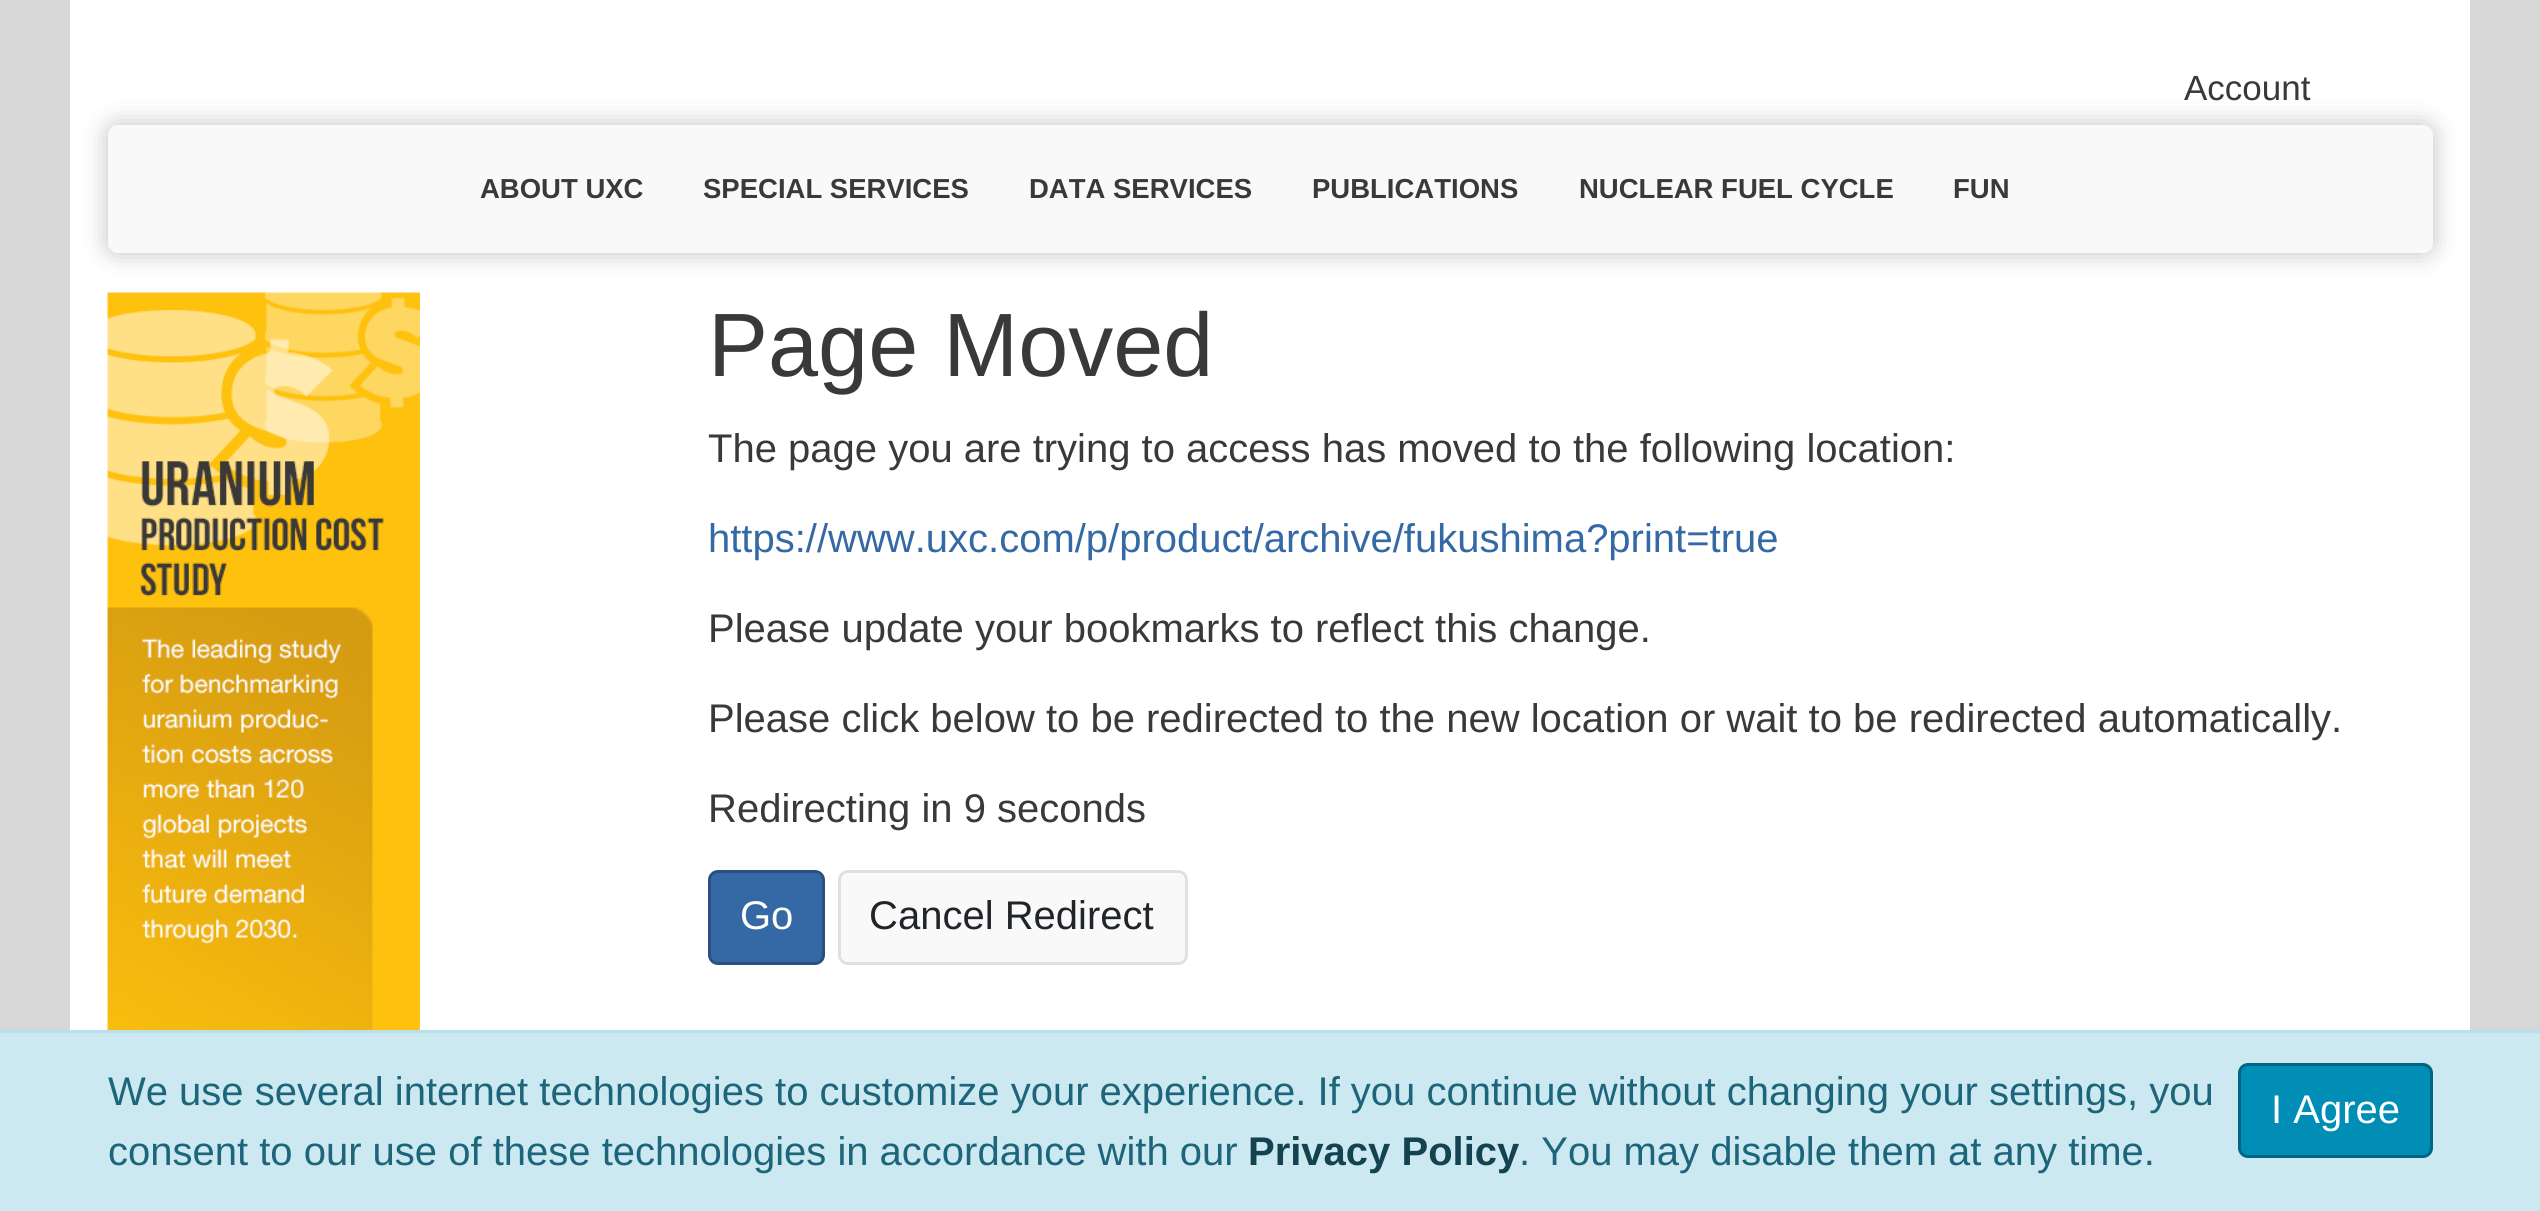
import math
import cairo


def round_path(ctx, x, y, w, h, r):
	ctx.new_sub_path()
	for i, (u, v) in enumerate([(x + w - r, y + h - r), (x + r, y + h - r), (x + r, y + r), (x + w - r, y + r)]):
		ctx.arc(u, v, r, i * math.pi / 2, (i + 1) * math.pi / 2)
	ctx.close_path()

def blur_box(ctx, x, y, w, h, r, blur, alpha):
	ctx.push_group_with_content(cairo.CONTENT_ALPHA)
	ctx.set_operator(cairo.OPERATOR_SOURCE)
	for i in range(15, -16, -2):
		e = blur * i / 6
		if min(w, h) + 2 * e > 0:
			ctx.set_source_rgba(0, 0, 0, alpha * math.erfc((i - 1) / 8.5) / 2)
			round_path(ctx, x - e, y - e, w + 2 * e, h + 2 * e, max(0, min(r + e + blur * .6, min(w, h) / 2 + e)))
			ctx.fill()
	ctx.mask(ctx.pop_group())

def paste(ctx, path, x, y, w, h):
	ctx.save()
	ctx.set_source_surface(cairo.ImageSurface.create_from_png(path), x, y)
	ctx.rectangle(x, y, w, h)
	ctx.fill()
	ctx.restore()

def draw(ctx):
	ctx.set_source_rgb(0.843, 0.843, 0.843)
	ctx.paint()
	ctx.set_source_rgb(1, 1, 1)
	ctx.rectangle(70, 0, 2400, 1030)
	ctx.fill()
	ctx.set_source_rgb(0, 0, 0)
	blur_box(ctx, 108, 125, 2325, 128, 10, 12.5, 0.25)
	ctx.select_font_face('Liberation Sans')
	ctx.set_font_size(35)
	ctx.set_source_rgb(0.231, 0.224, 0.22)
	ctx.move_to(2184, 100)
	ctx.show_text('Account')
	ctx.set_source_rgb(0.976, 0.976, 0.976)
	round_path(ctx, 108, 125, 2325, 128, 10)
	ctx.fill()
	ctx.select_font_face('Liberation Sans', cairo.FONT_SLANT_NORMAL, cairo.FONT_WEIGHT_BOLD)
	ctx.set_font_size(27.5)
	ctx.set_source_rgb(0.231, 0.224, 0.22)
	for x, y, s in [
		(480, 198, 'ABOUT UXC'),
		(703, 198, 'SPECIAL SERVICES'),
		(1029, 198, 'DATA SERVICES'),
		(1312, 198, 'PUBLICATIONS'),
		(1579, 198, 'NUCLEAR FUEL CYCLE'),
		(1953, 198, 'FUN'),
	]:
		ctx.move_to(x, y)
		ctx.show_text(s)
	paste(ctx, 'media/1.png', 107, 292, 313, 738)
	ctx.select_font_face('Liberation Sans')
	ctx.set_font_size(90)
	ctx.move_to(708, 376)
	ctx.show_text('Page Moved')
	ctx.set_font_size(40)
	ctx.move_to(708, 462)
	ctx.show_text('The page you are trying to access has moved to the following location:')
	ctx.set_source_rgb(0.208, 0.412, 0.647)
	ctx.move_to(708, 552)
	ctx.show_text('https://www.uxc.com/p/product/archive/fukushima?print=true')
	ctx.set_source_rgb(0.231, 0.224, 0.22)
	for x, y, s in [
		(708, 642, 'Please update your bookmarks to reflect this change.'),
		(708, 732, 'Please click below to be redirected to the new location or wait to be redirected automatically.'),
		(708, 822, 'Redirecting in 9 seconds'),
	]:
		ctx.move_to(x, y)
		ctx.show_text(s)
	ctx.set_source_rgb(0.208, 0.412, 0.647)
	round_path(ctx, 709.5, 871.5, 114, 92, 8.5)
	ctx.fill_preserve()
	ctx.set_source_rgb(0.161, 0.314, 0.494)
	ctx.set_line_width(3)
	ctx.stroke()
	ctx.set_source_rgb(1, 1, 1)
	ctx.move_to(740, 929)
	ctx.show_text('Go')
	ctx.set_source_rgb(0.976, 0.976, 0.976)
	round_path(ctx, 839.5, 871.5, 347, 92, 8.5)
	ctx.fill_preserve()
	ctx.set_source_rgb(0.878, 0.878, 0.878)
	ctx.stroke()
	ctx.set_source_rgb(0.129, 0.145, 0.161)
	ctx.move_to(869, 929)
	ctx.show_text('Cancel Redirect')
	ctx.set_source_rgb(0.8, 0.91, 0.941)
	ctx.rectangle(0, 1033, 2540, 178)
	ctx.fill()
	ctx.set_source_rgb(0.722, 0.875, 0.922)
	ctx.rectangle(0, 1030, 2540, 3)
	ctx.fill()
	ctx.set_source_rgb(0.11, 0.396, 0.478)
	ctx.move_to(108, 1105)
	ctx.show_text('We use several internet technologies to customize your experience. If you continue without changing your settings, you')
	ctx.set_source_rgb(0, 0.553, 0.714)
	round_path(ctx, 2239.5, 1064.5, 192, 92, 8.5)
	ctx.fill_preserve()
	ctx.set_source_rgb(0, 0.396, 0.514)
	ctx.stroke()
	ctx.set_source_rgb(1, 1, 1)
	ctx.move_to(2271, 1123)
	ctx.show_text('I Agree')
	ctx.set_source_rgb(0.11, 0.396, 0.478)
	ctx.move_to(108, 1165)
	ctx.show_text('consent to our use of these technologies in accordance with our')
	ctx.select_font_face('Liberation Sans', cairo.FONT_SLANT_NORMAL, cairo.FONT_WEIGHT_BOLD)
	ctx.set_source_rgb(0.075, 0.259, 0.314)
	ctx.move_to(1248, 1165)
	ctx.show_text('Privacy Policy')
	ctx.select_font_face('Liberation Sans')
	ctx.set_source_rgb(0.11, 0.396, 0.478)
	ctx.move_to(1519, 1165)
	ctx.show_text('. You may disable them at any time.')


surface = cairo.ImageSurface(cairo.FORMAT_RGB24, 2540, 1211)
ctx = cairo.Context(surface)
options = cairo.FontOptions()
options.set_hint_metrics(cairo.HINT_METRICS_OFF)
options.set_hint_style(cairo.HINT_STYLE_NONE)
ctx.set_font_options(options)
ctx.set_miter_limit(4)
draw(ctx)
surface.write_to_png('image.png')
